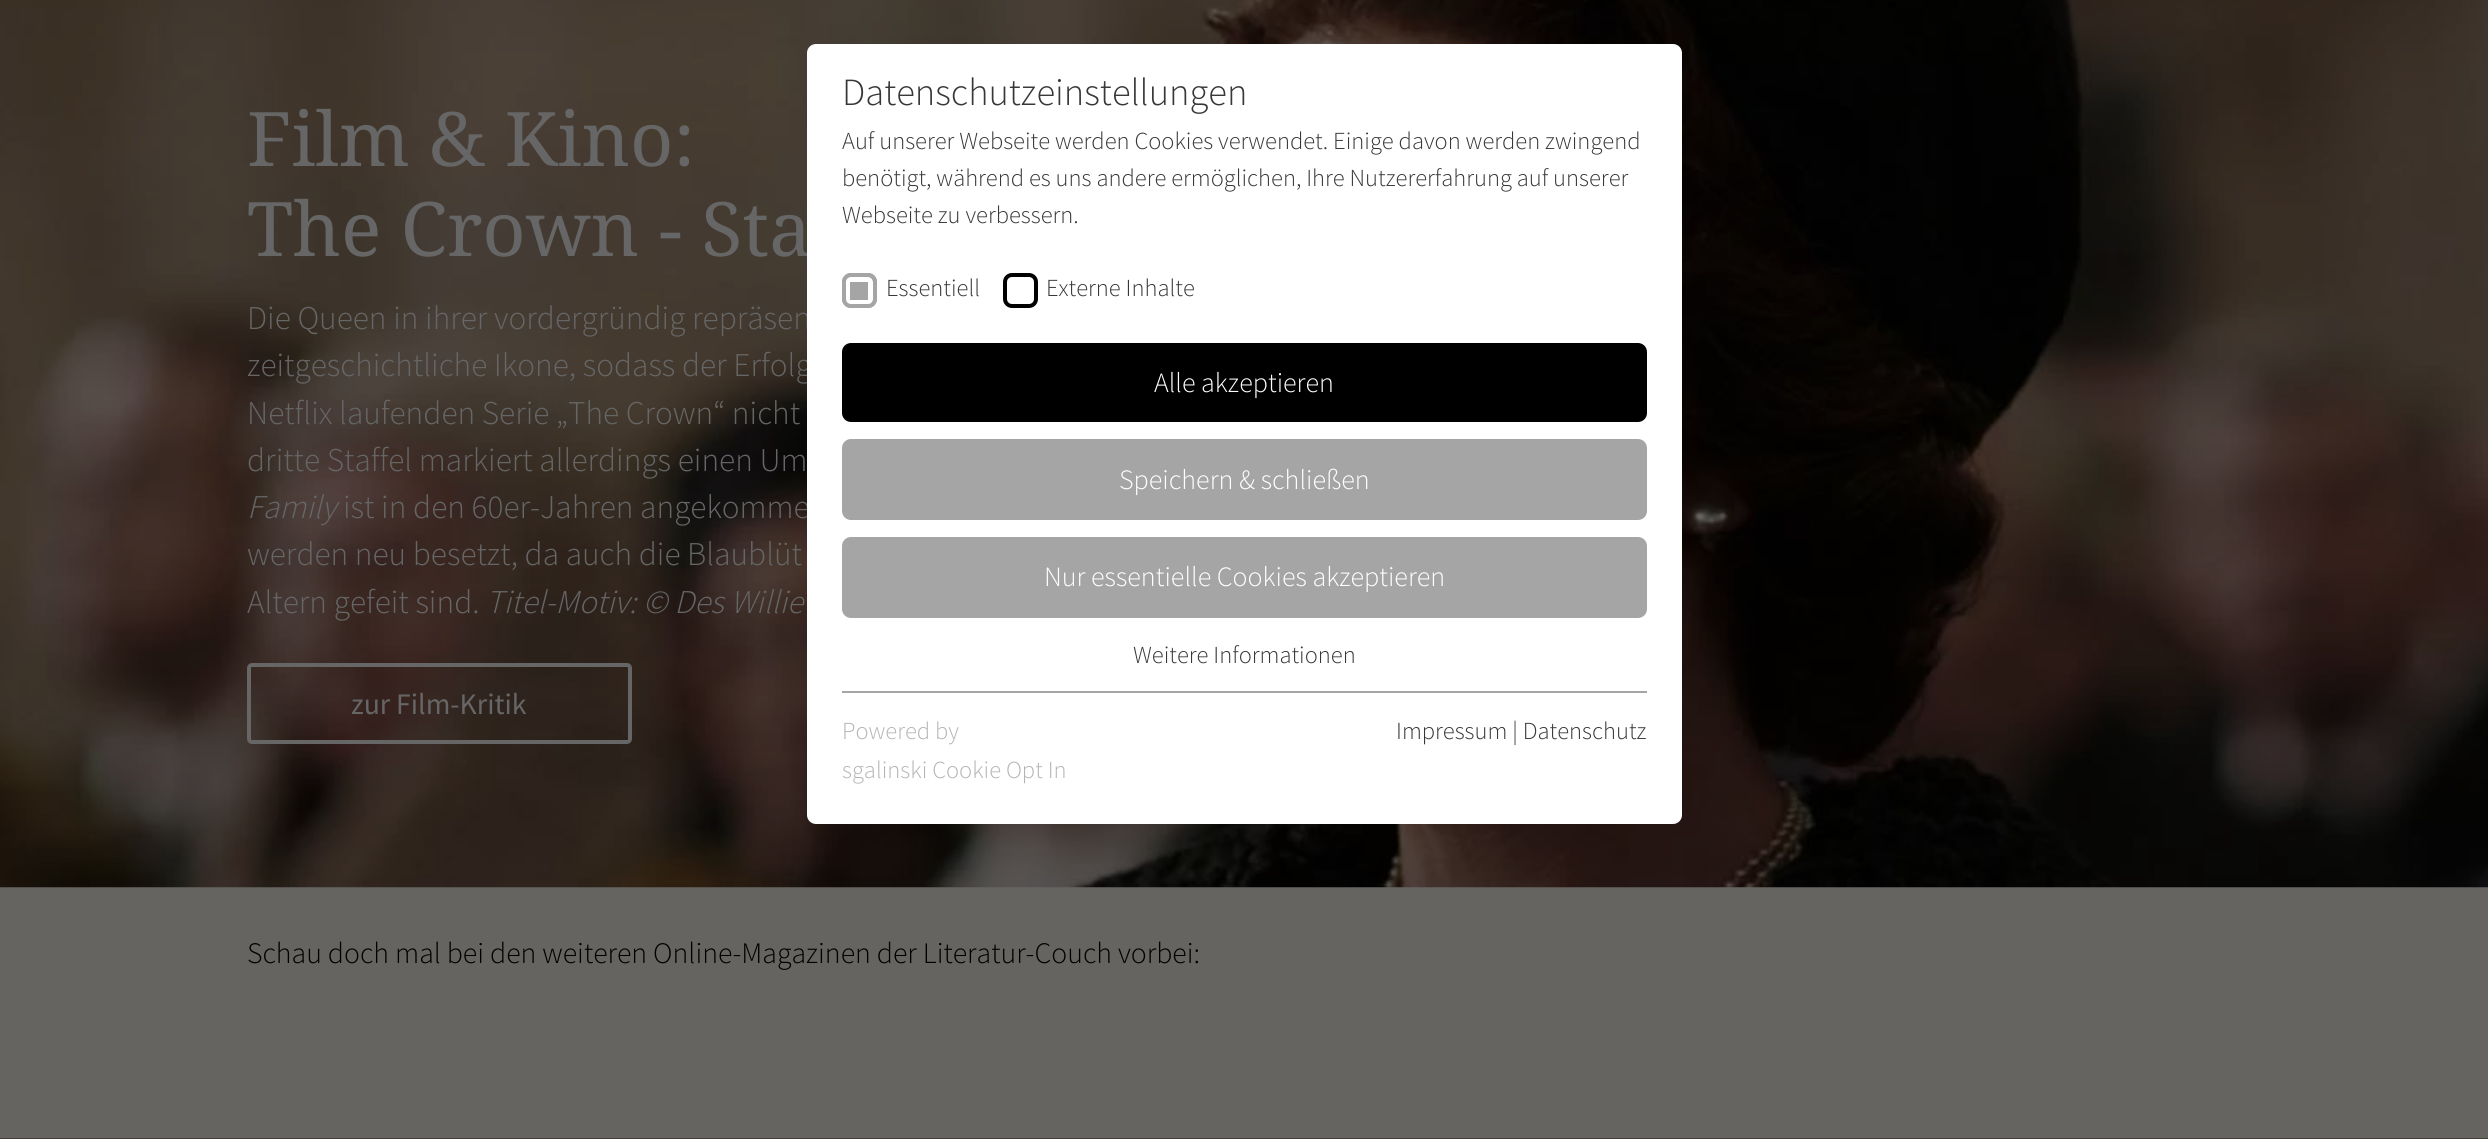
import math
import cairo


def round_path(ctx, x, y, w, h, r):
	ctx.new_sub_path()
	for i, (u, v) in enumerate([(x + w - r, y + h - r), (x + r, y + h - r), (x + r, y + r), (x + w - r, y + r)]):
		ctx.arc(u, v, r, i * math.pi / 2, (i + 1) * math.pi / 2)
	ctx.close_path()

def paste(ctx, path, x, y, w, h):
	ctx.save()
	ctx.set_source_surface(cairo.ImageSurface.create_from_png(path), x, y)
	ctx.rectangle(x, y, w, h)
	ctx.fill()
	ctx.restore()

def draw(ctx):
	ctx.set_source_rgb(0.267, 0.239, 0.208)
	ctx.paint()
	ctx.set_source_rgb(0.4, 0.392, 0.38)
	ctx.rectangle(0, 887, 2488, 251)
	ctx.fill()
	paste(ctx, 'media/1.png', 0, 0, 2488, 888)
	ctx.select_font_face('Noto Serif')
	ctx.set_font_size(75.25)
	ctx.set_source_rgb(0.4, 0.4, 0.4)
	ctx.move_to(247, 166)
	ctx.show_text('Film & Kino:')
	ctx.move_to(247, 256)
	ctx.show_text('The Crown - Sta')
	ctx.select_font_face('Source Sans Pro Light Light')
	ctx.set_font_size(33.25)
	for x, y, s in [
		(247, 329, 'Die Queen in ihrer vordergründig repräsen'),
		(247, 376, 'zeitgeschichtliche Ikone, sodass der Erfolg'),
		(247, 424, 'Netflix laufenden Serie „The Crown“ nicht'),
		(247, 471, 'dritte Staffel markiert allerdings einen Um'),
	]:
		ctx.move_to(x, y)
		ctx.show_text(s)
	ctx.select_font_face('Source Sans Pro Light Light', cairo.FONT_SLANT_ITALIC)
	ctx.move_to(247, 518)
	ctx.show_text('Family')
	ctx.select_font_face('Source Sans Pro Light Light')
	for x, y, s in [
		(343, 518, 'ist in den 60er-Jahren angekomme'),
		(247, 565, 'werden neu besetzt, da auch die Blaublüt'),
		(247, 613, 'Altern gefeit sind.'),
	]:
		ctx.move_to(x, y)
		ctx.show_text(s)
	ctx.select_font_face('Source Sans Pro Light Light', cairo.FONT_SLANT_ITALIC)
	ctx.move_to(486, 613)
	ctx.show_text('Titel-Motiv: © Des Willie')
	round_path(ctx, 249, 665, 381, 77, 3)
	ctx.set_line_width(4)
	ctx.stroke()
	ctx.select_font_face('Source Sans Pro')
	ctx.set_font_size(29.75)
	ctx.move_to(351, 714)
	ctx.show_text('zur Film-Kritik')
	ctx.select_font_face('Source Sans Pro Light Light')
	ctx.set_source_rgb(0, 0, 0)
	ctx.move_to(247, 963)
	ctx.show_text('Schau doch mal bei den weiteren Online-Magazinen der Literatur-Couch vorbei:')
	ctx.set_source_rgb(1, 1, 1)
	round_path(ctx, 807, 44, 875, 780, 9)
	ctx.fill()
	ctx.set_font_size(38.5)
	ctx.set_source_rgb(0.216, 0.216, 0.216)
	ctx.move_to(842, 105)
	ctx.show_text('Datenschutzeinstellungen')
	ctx.set_font_size(24.5)
	for x, y, s in [
		(842, 149, 'Auf unserer Webseite werden Cookies verwendet. Einige davon werden zwingend'),
		(842, 186, 'benötigt, während es uns andere ermöglichen, Ihre Nutzererfahrung auf unserer'),
		(842, 223, 'Webseite zu verbessern.'),
	]:
		ctx.move_to(x, y)
		ctx.show_text(s)
	ctx.set_source_rgb(0.647, 0.647, 0.647)
	round_path(ctx, 842, 273, 35, 35, 9)
	ctx.fill()
	round_path(ctx, 847.5, 279.5, 23, 23, 2.5)
	ctx.set_source_rgb(1, 1, 1)
	ctx.set_line_width(5)
	ctx.stroke()
	round_path(ctx, 844, 275, 31, 31, 7)
	ctx.set_source_rgb(0.647, 0.647, 0.647)
	ctx.set_line_width(4)
	ctx.stroke()
	ctx.set_source_rgb(0.216, 0.216, 0.216)
	ctx.move_to(886, 296)
	ctx.show_text('Essentiell')
	round_path(ctx, 1005, 275, 31, 31, 7)
	ctx.set_source_rgb(0, 0, 0)
	ctx.stroke()
	ctx.set_source_rgb(0.216, 0.216, 0.216)
	ctx.move_to(1046, 296)
	ctx.show_text('Externe Inhalte')
	ctx.set_source_rgb(0, 0, 0)
	round_path(ctx, 842, 343, 805, 79, 9)
	ctx.fill()
	ctx.set_font_size(28)
	ctx.set_source_rgb(1, 1, 1)
	ctx.move_to(1154, 392)
	ctx.show_text('Alle akzeptieren')
	ctx.set_source_rgb(0.647, 0.647, 0.647)
	round_path(ctx, 842, 439, 805, 81, 9)
	ctx.fill()
	ctx.set_source_rgb(1, 1, 1)
	ctx.move_to(1119, 489)
	ctx.show_text('Speichern & schließen')
	ctx.set_source_rgb(0.647, 0.647, 0.647)
	round_path(ctx, 842, 537, 805, 81, 9)
	ctx.fill()
	ctx.set_source_rgb(1, 1, 1)
	ctx.move_to(1044, 586)
	ctx.show_text('Nur essentielle Cookies akzeptieren')
	ctx.set_font_size(24.5)
	ctx.set_source_rgb(0.216, 0.216, 0.216)
	ctx.move_to(1133, 663)
	ctx.show_text('Weitere Informationen')
	ctx.set_source_rgb(0.647, 0.647, 0.647)
	ctx.rectangle(842, 691, 805, 2)
	ctx.fill()
	ctx.set_source_rgb(0.706, 0.706, 0.706)
	ctx.move_to(842, 739)
	ctx.show_text('Powered by')
	ctx.move_to(842, 778)
	ctx.show_text('sgalinski Cookie Opt In')
	ctx.set_source_rgb(0.216, 0.216, 0.216)
	ctx.move_to(1396, 739)
	ctx.show_text('Impressum | Datenschutz')


surface = cairo.ImageSurface(cairo.FORMAT_RGB24, 2488, 1139)
ctx = cairo.Context(surface)
options = cairo.FontOptions()
options.set_hint_metrics(cairo.HINT_METRICS_OFF)
options.set_hint_style(cairo.HINT_STYLE_NONE)
ctx.set_font_options(options)
ctx.set_miter_limit(4)
draw(ctx)
surface.write_to_png('image.png')
